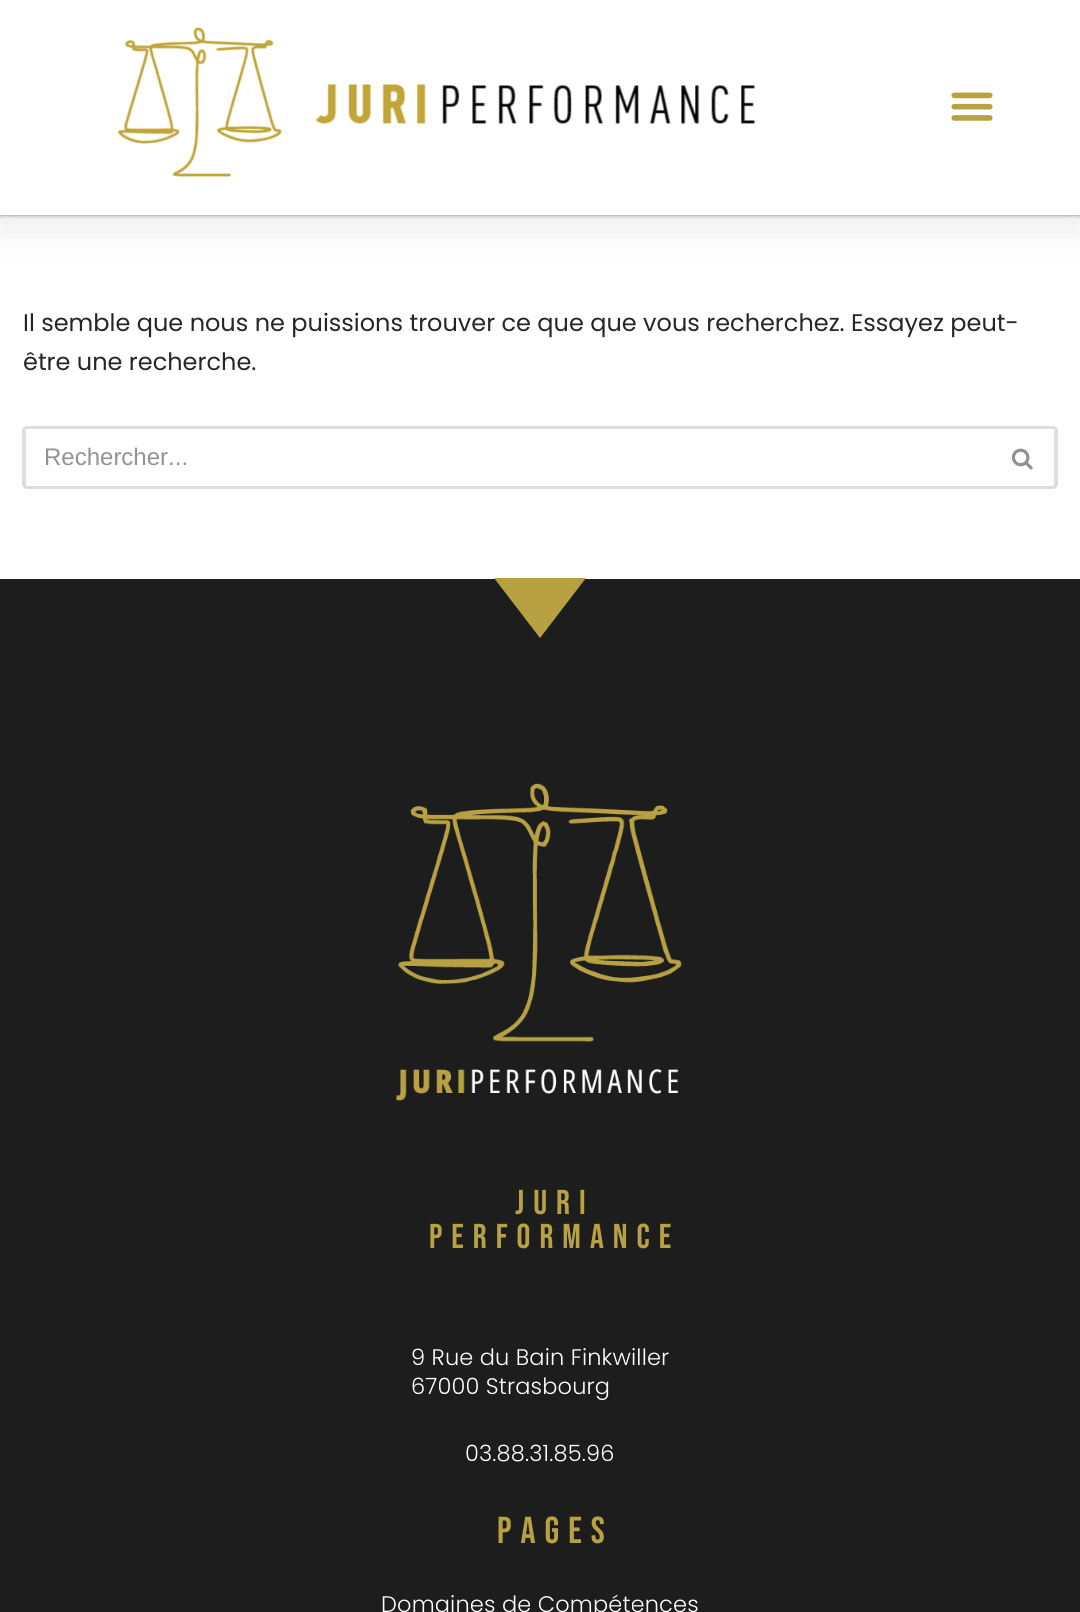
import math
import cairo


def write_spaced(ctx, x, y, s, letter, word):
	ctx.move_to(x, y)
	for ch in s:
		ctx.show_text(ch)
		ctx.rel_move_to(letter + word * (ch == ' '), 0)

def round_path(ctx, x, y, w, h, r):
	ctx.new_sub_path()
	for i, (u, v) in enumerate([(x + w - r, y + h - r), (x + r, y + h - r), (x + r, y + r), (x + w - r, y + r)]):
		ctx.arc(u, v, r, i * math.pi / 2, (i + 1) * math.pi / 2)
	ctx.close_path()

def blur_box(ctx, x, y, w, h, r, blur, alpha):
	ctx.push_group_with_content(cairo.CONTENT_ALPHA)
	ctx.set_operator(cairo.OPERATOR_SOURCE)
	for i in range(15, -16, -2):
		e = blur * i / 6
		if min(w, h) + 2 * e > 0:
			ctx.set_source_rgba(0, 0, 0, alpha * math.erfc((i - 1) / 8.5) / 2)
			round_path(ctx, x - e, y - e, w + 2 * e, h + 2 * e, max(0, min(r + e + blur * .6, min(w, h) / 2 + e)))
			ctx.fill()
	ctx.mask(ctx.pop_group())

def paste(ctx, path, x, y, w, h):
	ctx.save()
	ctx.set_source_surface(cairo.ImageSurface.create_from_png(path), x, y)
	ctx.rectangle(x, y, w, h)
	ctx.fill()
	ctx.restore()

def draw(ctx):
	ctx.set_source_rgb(1, 1, 1)
	ctx.paint()
	ctx.set_source_rgb(0, 0, 0)
	blur_box(ctx, 0, 8, 1080, 214, 0, 22.5, 0.1)
	blur_box(ctx, 0, 0, 1080, 215, 0, 2, 0.5)
	ctx.set_source_rgb(1, 1, 1)
	ctx.rectangle(0, 0, 1080, 215)
	ctx.fill()
	paste(ctx, 'media/1.png', 117, 27, 639, 150)
	paste(ctx, 'media/2.png', 951, 92, 42, 29)
	ctx.select_font_face('Poppins')
	ctx.set_font_size(24)
	ctx.set_source_rgb(0.153, 0.149, 0.149)
	ctx.move_to(23, 331)
	ctx.show_text('Il semble que nous ne puissions trouver ce que que vous recherchez. Essayez peut-')
	ctx.move_to(23, 370)
	ctx.show_text('être une recherche.')
	ctx.set_source_rgb(0.867, 0.867, 0.867)
	ctx.set_fill_rule(cairo.FILL_RULE_EVEN_ODD)
	ctx.new_path()
	ctx.move_to(27, 426)
	ctx.line_to(990, 426)
	ctx.line_to(990, 489)
	ctx.line_to(27, 489)
	ctx.curve_to(25, 489, 22, 487, 22, 484)
	ctx.line_to(22, 430)
	ctx.curve_to(22, 428, 25, 426, 27, 426)
	ctx.close_path()
	ctx.move_to(27, 429)
	ctx.line_to(990, 429)
	ctx.line_to(990, 486)
	ctx.line_to(27, 486)
	ctx.curve_to(26, 486, 26, 485, 26, 484)
	ctx.line_to(26, 430)
	ctx.curve_to(26, 430, 26, 429, 27, 429)
	ctx.close_path()
	ctx.fill()
	ctx.select_font_face('Liberation Sans')
	ctx.set_source_rgb(0.576, 0.576, 0.576)
	ctx.move_to(44, 465)
	ctx.show_text('Rechercher...')
	ctx.set_source_rgb(0.867, 0.867, 0.867)
	ctx.new_path()
	ctx.move_to(990, 426)
	ctx.line_to(1053, 426)
	ctx.curve_to(1055, 426, 1058, 428, 1058, 430)
	ctx.line_to(1058, 484)
	ctx.curve_to(1058, 487, 1055, 489, 1053, 489)
	ctx.line_to(990, 489)
	ctx.close_path()
	ctx.move_to(990, 429)
	ctx.line_to(1053, 429)
	ctx.curve_to(1054, 429, 1054, 430, 1054, 430)
	ctx.line_to(1054, 484)
	ctx.curve_to(1054, 485, 1054, 486, 1053, 486)
	ctx.line_to(990, 486)
	ctx.close_path()
	ctx.fill()
	paste(ctx, 'media/3.png', 1011, 448, 22, 22)
	ctx.set_source_rgb(0.114, 0.114, 0.114)
	ctx.rectangle(0, 579, 1080, 1033)
	ctx.fill()
	ctx.set_source_rgb(0.722, 0.631, 0.263)
	ctx.set_fill_rule(cairo.FILL_RULE_WINDING)
	ctx.new_path()
	ctx.move_to(540, 638)
	ctx.line_to(494, 578)
	ctx.line_to(586, 578)
	ctx.close_path()
	ctx.fill()
	paste(ctx, 'media/4.png', 396, 783, 286, 318)
	ctx.select_font_face('Bebas Neue')
	ctx.set_font_size(34.5)
	write_spaced(ctx, 515, 1214, 'Juri', 9, 0)
	write_spaced(ctx, 429, 1248, 'Performance', 9, 0)
	ctx.select_font_face('Poppins Light')
	ctx.set_font_size(22.5)
	ctx.set_source_rgb(1, 1, 1)
	for x, y, s in [
		(411, 1365, '9 Rue du Bain Finkwiller'),
		(411, 1394, '67000 Strasbourg'),
		(465, 1461, '03.88.31.85.96'),
	]:
		write_spaced(ctx, x, y, s, 0.15, 0)
	ctx.select_font_face('Bebas Neue')
	ctx.set_font_size(37.5)
	ctx.set_source_rgb(0.722, 0.631, 0.263)
	write_spaced(ctx, 497, 1543, 'Pages', 9, 0)
	ctx.select_font_face('Poppins Light')
	ctx.set_font_size(22.5)
	ctx.set_source_rgb(1, 1, 1)
	write_spaced(ctx, 381, 1612, 'Domaines de Compétences', 0.15, 0)


surface = cairo.ImageSurface(cairo.FORMAT_RGB24, 1080, 1612)
ctx = cairo.Context(surface)
options = cairo.FontOptions()
options.set_hint_metrics(cairo.HINT_METRICS_OFF)
options.set_hint_style(cairo.HINT_STYLE_NONE)
ctx.set_font_options(options)
ctx.set_miter_limit(4)
draw(ctx)
surface.write_to_png('image.png')
